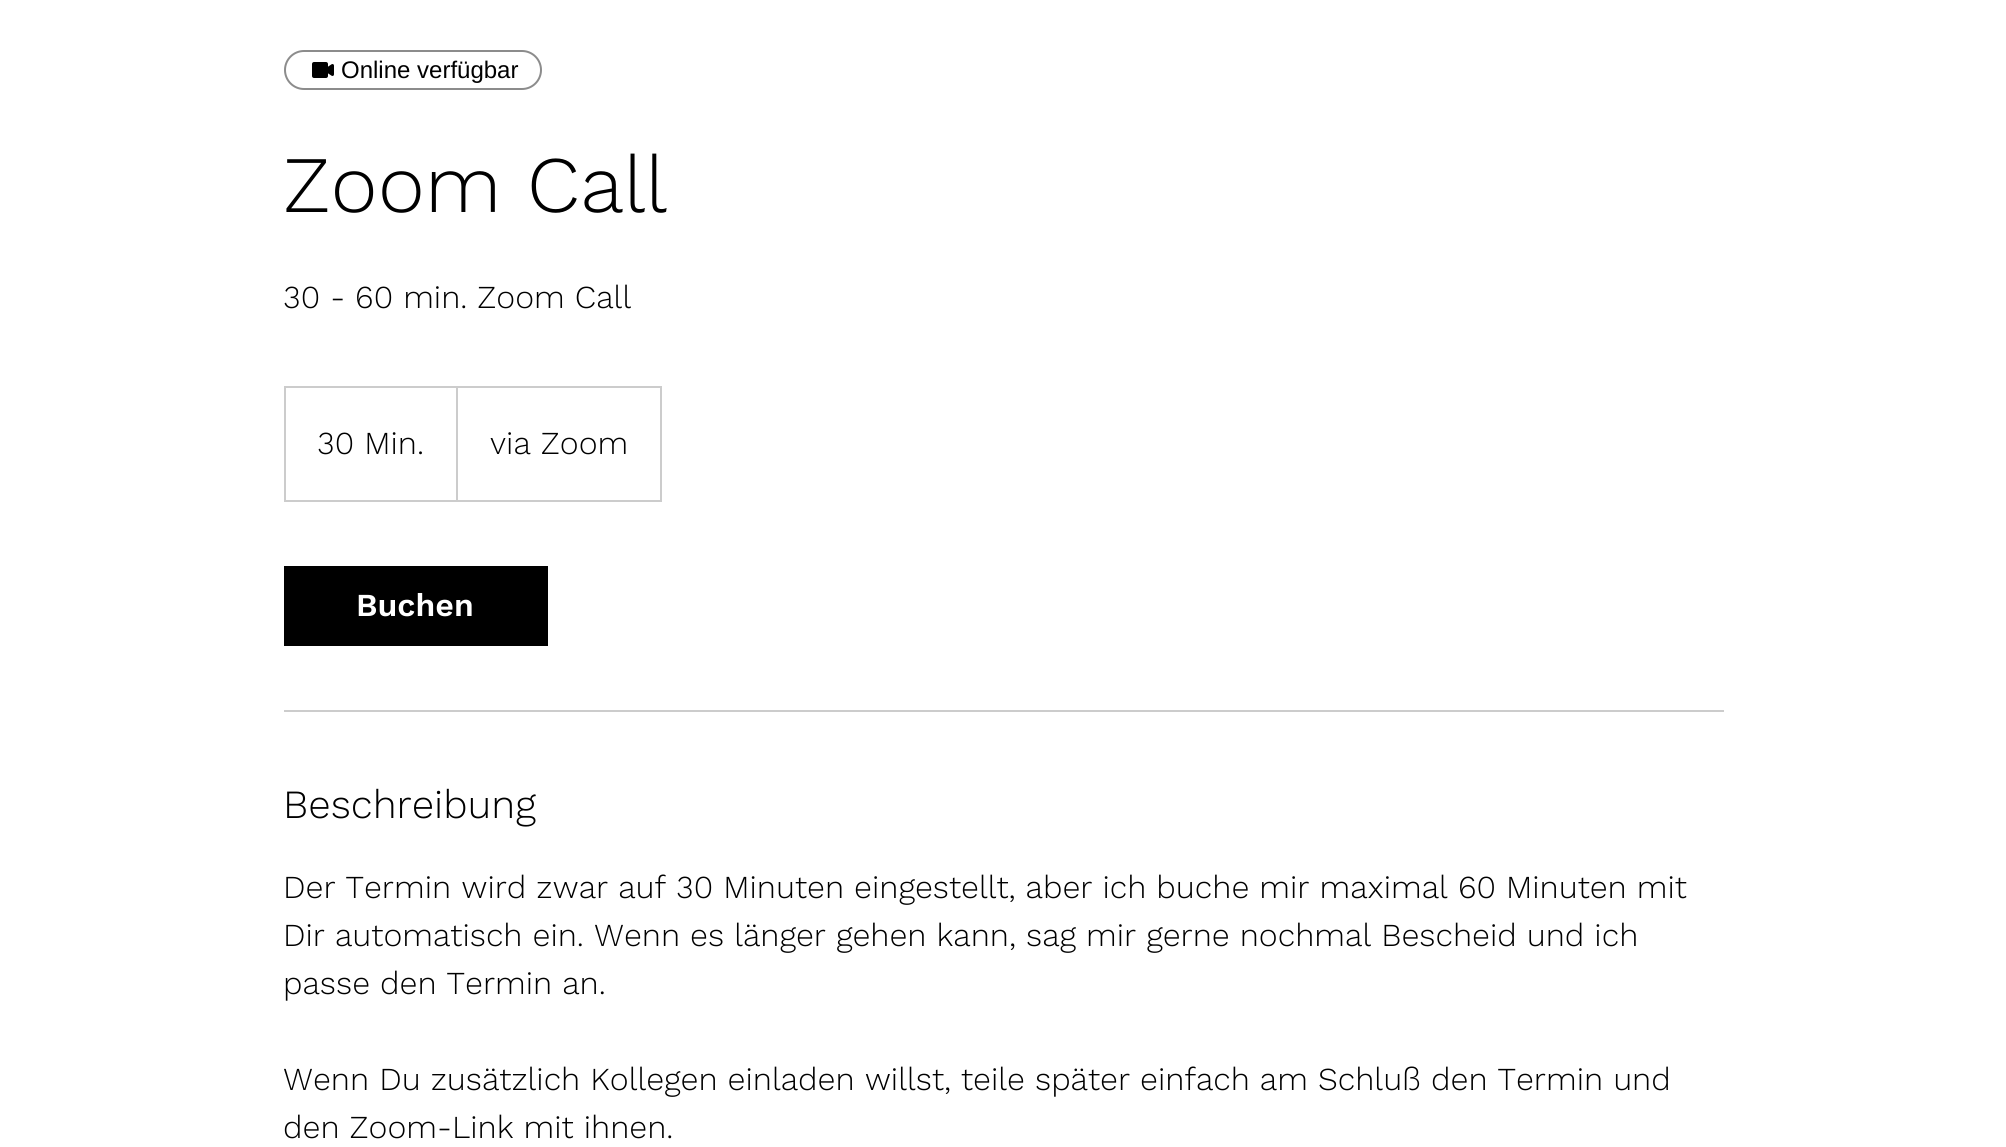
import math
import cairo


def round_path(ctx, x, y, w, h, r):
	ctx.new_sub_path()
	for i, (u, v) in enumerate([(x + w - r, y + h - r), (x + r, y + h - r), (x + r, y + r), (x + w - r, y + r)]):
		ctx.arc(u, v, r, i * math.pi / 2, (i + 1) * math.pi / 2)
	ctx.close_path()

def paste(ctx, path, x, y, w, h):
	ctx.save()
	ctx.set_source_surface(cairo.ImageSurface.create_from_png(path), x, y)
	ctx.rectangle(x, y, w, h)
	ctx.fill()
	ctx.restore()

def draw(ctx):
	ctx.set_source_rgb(1, 1, 1)
	ctx.paint()
	round_path(ctx, 285, 51, 256, 38, 19)
	ctx.set_source_rgb(0.549, 0.549, 0.549)
	ctx.stroke()
	paste(ctx, 'media/1.png', 312, 62, 22, 16)
	ctx.select_font_face('Liberation Sans')
	ctx.set_font_size(24)
	ctx.set_source_rgb(0, 0, 0)
	ctx.move_to(341, 78)
	ctx.show_text('Online verfügbar')
	ctx.select_font_face('Work Sans Light')
	ctx.set_font_size(80)
	ctx.move_to(283, 212)
	ctx.show_text('Zoom Call')
	ctx.set_font_size(32)
	ctx.move_to(283, 308)
	ctx.show_text('30 - 60 min. Zoom Call')
	ctx.rectangle(285, 387, 376, 114)
	ctx.set_source_rgb(0.8, 0.8, 0.8)
	ctx.stroke()
	ctx.set_source_rgb(0, 0, 0)
	ctx.move_to(317, 454)
	ctx.show_text('30 Min.')
	ctx.save()
	ctx.rectangle(286, 388, 374, 112)
	ctx.clip()
	ctx.set_source_rgb(0.8, 0.8, 0.8)
	ctx.new_path()
	ctx.move_to(456, 500)
	ctx.line_to(456, 386)
	ctx.line_to(458, 388)
	ctx.line_to(458, 500)
	ctx.close_path()
	ctx.fill()
	ctx.restore()
	ctx.move_to(490, 454)
	ctx.show_text('via Zoom')
	ctx.rectangle(284, 566, 264, 80)
	ctx.fill()
	ctx.select_font_face('Work Sans SemiBold')
	ctx.set_source_rgb(1, 1, 1)
	ctx.move_to(356, 616)
	ctx.show_text('Buchen')
	ctx.set_source_rgb(0.8, 0.8, 0.8)
	ctx.rectangle(284, 710, 1440, 2)
	ctx.fill()
	ctx.select_font_face('Work Sans Light')
	ctx.set_font_size(40)
	ctx.set_source_rgb(0, 0, 0)
	ctx.move_to(283, 818)
	ctx.show_text('Beschreibung')
	ctx.set_font_size(32)
	for x, y, s in [
		(283, 898, 'Der Termin wird zwar auf 30 Minuten eingestellt, aber ich buche mir maximal 60 Minuten mit'),
		(283, 946, 'Dir automatisch ein. Wenn es länger gehen kann, sag mir gerne nochmal Bescheid und ich'),
		(283, 994, 'passe den Termin an.'),
		(283, 1090, 'Wenn Du zusätzlich Kollegen einladen willst, teile später einfach am Schluß den Termin und'),
		(283, 1138, 'den Zoom-Link mit ihnen.'),
	]:
		ctx.move_to(x, y)
		ctx.show_text(s)


surface = cairo.ImageSurface(cairo.FORMAT_RGB24, 2006, 1147)
ctx = cairo.Context(surface)
options = cairo.FontOptions()
options.set_hint_metrics(cairo.HINT_METRICS_OFF)
options.set_hint_style(cairo.HINT_STYLE_NONE)
ctx.set_font_options(options)
ctx.set_miter_limit(4)
draw(ctx)
surface.write_to_png('image.png')
